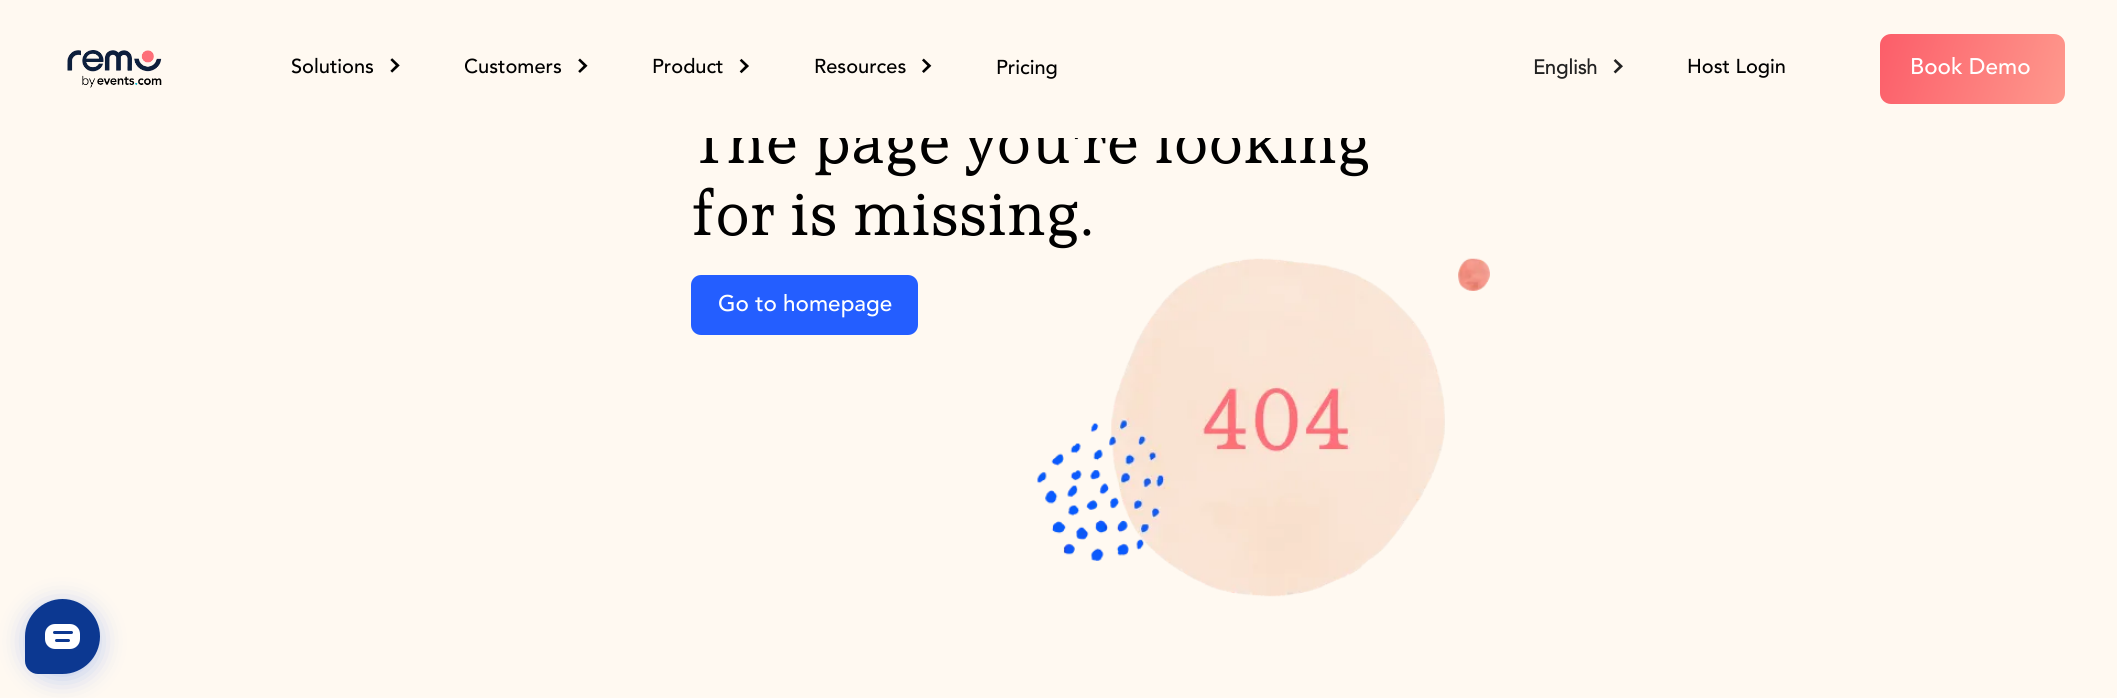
import math
import cairo


def round_path(ctx, x, y, w, h, r):
	ctx.new_sub_path()
	for i, (u, v) in enumerate([(x + w - r, y + h - r), (x + r, y + h - r), (x + r, y + r), (x + w - r, y + r)]):
		ctx.arc(u, v, r, i * math.pi / 2, (i + 1) * math.pi / 2)
	ctx.close_path()

def blur_box(ctx, x, y, w, h, r, blur, alpha):
	ctx.push_group_with_content(cairo.CONTENT_ALPHA)
	ctx.set_operator(cairo.OPERATOR_SOURCE)
	for i in range(15, -16, -2):
		e = blur * i / 6
		if min(w, h) + 2 * e > 0:
			ctx.set_source_rgba(0, 0, 0, alpha * math.erfc((i - 1) / 8.5) / 2)
			round_path(ctx, x - e, y - e, w + 2 * e, h + 2 * e, max(0, min(r + e + blur * .6, min(w, h) / 2 + e)))
			ctx.fill()
	ctx.mask(ctx.pop_group())

def paste(ctx, path, x, y, w, h):
	ctx.save()
	ctx.set_source_surface(cairo.ImageSurface.create_from_png(path), x, y)
	ctx.rectangle(x, y, w, h)
	ctx.fill()
	ctx.restore()

def draw(ctx):
	ctx.set_source_rgb(1, 0.973, 0.945)
	ctx.paint()
	ctx.select_font_face('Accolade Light')
	ctx.set_font_size(60)
	ctx.set_source_rgb(0, 0, 0)
	ctx.move_to(692, 163)
	ctx.show_text('The page you\'re looking')
	ctx.set_source_rgb(1, 0.973, 0.945)
	ctx.rectangle(693, 115, 676, 23)
	ctx.fill()
	paste(ctx, 'media/1.png', 67, 50, 95, 38)
	ctx.select_font_face('Avenir Medium')
	ctx.set_font_size(20)
	ctx.set_source_rgb(0, 0, 0)
	ctx.move_to(291, 73)
	ctx.show_text('Solutions')
	paste(ctx, 'media/2.png', 390, 58, 10, 15)
	ctx.move_to(464, 73)
	ctx.show_text('Customers')
	paste(ctx, 'media/3.png', 578, 58, 10, 15)
	ctx.move_to(652, 73)
	ctx.show_text('Product')
	paste(ctx, 'media/4.png', 739, 58, 10, 16)
	ctx.move_to(814, 73)
	ctx.show_text('Resources')
	paste(ctx, 'media/5.png', 922, 58, 10, 15)
	ctx.move_to(996, 74)
	ctx.show_text('Pricing')
	ctx.select_font_face('Avenir', cairo.FONT_SLANT_NORMAL, cairo.FONT_WEIGHT_BOLD)
	ctx.set_source_rgb(0.133, 0.133, 0.133)
	ctx.move_to(1533, 74)
	ctx.show_text('English')
	paste(ctx, 'media/6.png', 1613, 59, 10, 15)
	ctx.select_font_face('Avenir Medium')
	ctx.set_source_rgb(0, 0, 0)
	ctx.move_to(1687, 73)
	ctx.show_text('Host Login')
	gradient = cairo.LinearGradient(1879, 38, 2066, 99)
	gradient.add_color_stop_rgba(0, 0.988, 0.365, 0.412, 1)
	gradient.add_color_stop_rgba(1, 0.996, 0.6, 0.553, 1)
	ctx.set_source(gradient)
	round_path(ctx, 1880, 34, 185, 70, 11)
	ctx.fill()
	ctx.set_font_size(22.5)
	ctx.set_source_rgb(1, 1, 1)
	ctx.move_to(1910, 74)
	ctx.show_text('Book Demo')
	ctx.select_font_face('Accolade Light')
	ctx.set_font_size(60)
	ctx.set_source_rgb(0, 0, 0)
	ctx.move_to(692, 235)
	ctx.show_text('for is missing.')
	ctx.set_source_rgb(0.141, 0.369, 1)
	round_path(ctx, 691, 275, 227, 60, 10)
	ctx.fill()
	ctx.select_font_face('Avenir Medium')
	ctx.set_font_size(22.5)
	ctx.set_source_rgb(1, 1, 1)
	ctx.move_to(718, 311)
	ctx.show_text('Go to homepage')
	paste(ctx, 'media/7.png', 1037, 258, 453, 339)
	ctx.set_source_rgb(0.145, 0.388, 0.922)
	blur_box(ctx, 25, 604, 75, 75, 37.5, 12.5, 0.3)
	ctx.set_source_rgb(0.047, 0.22, 0.569)
	ctx.new_path()
	ctx.move_to(62.5, 599)
	ctx.curve_to(83, 599, 100, 616, 100, 636.5)
	ctx.curve_to(100, 657, 83, 674, 62.5, 674)
	ctx.line_to(38, 674)
	ctx.curve_to(31, 674, 25, 668, 25, 661)
	ctx.line_to(25, 636.5)
	ctx.curve_to(25, 616, 42, 599, 62.5, 599)
	ctx.close_path()
	ctx.fill()
	ctx.set_source_rgb(1, 1, 1)
	round_path(ctx, 45, 624, 35, 25, 10)
	ctx.fill()
	ctx.set_source_rgb(0.047, 0.22, 0.569)
	round_path(ctx, 53, 631, 20, 3, 1.5)
	ctx.fill()
	round_path(ctx, 55, 639, 15, 3, 1.5)
	ctx.fill()


surface = cairo.ImageSurface(cairo.FORMAT_RGB24, 2117, 698)
ctx = cairo.Context(surface)
options = cairo.FontOptions()
options.set_hint_metrics(cairo.HINT_METRICS_OFF)
options.set_hint_style(cairo.HINT_STYLE_NONE)
ctx.set_font_options(options)
ctx.set_miter_limit(4)
draw(ctx)
surface.write_to_png('image.png')
